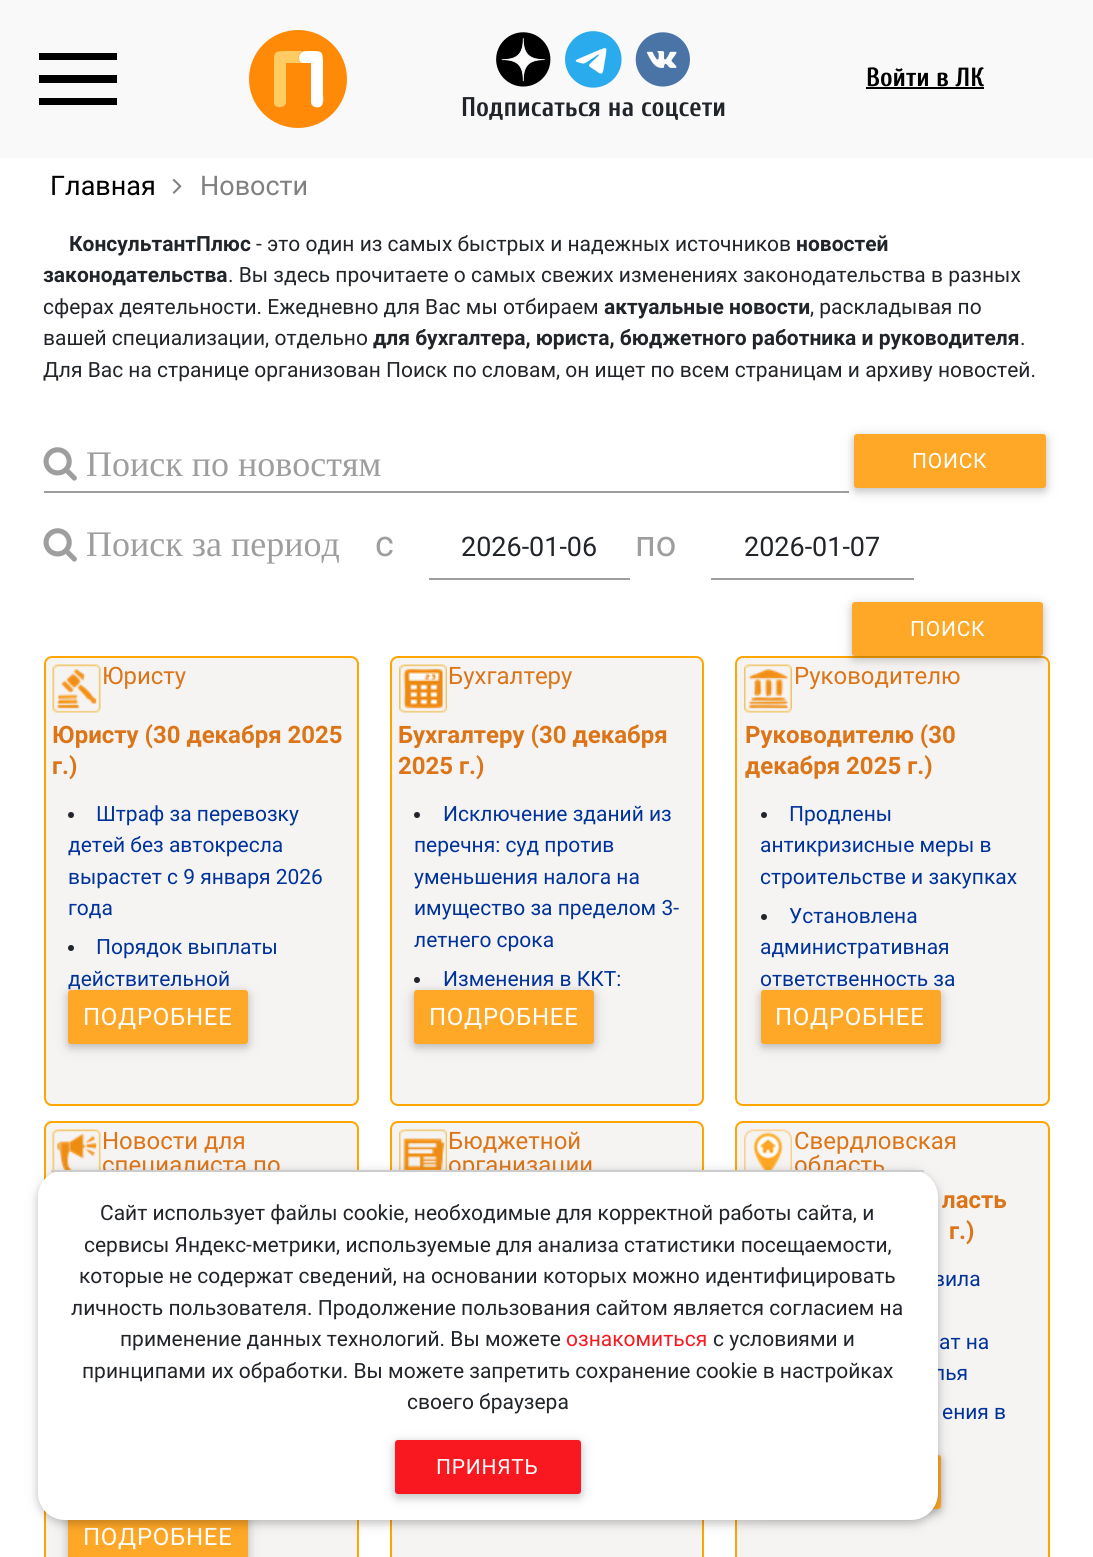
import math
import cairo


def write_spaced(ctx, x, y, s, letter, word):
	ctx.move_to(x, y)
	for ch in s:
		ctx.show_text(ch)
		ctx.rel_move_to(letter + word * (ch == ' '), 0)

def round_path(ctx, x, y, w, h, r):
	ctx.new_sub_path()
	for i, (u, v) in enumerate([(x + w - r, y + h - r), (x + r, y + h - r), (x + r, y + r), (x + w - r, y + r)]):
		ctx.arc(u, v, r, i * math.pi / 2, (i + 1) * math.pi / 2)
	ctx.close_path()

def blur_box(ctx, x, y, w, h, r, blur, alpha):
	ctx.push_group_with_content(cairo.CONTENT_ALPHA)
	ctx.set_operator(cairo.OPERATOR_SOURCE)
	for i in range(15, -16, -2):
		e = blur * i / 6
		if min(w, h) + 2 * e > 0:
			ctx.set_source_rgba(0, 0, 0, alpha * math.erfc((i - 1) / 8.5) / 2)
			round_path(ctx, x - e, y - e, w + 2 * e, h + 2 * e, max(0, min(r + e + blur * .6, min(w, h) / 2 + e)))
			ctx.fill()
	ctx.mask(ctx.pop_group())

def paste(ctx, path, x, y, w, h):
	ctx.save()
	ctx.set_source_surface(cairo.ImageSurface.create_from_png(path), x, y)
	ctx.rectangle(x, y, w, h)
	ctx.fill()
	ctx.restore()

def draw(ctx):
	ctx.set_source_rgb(1, 1, 1)
	ctx.paint()
	ctx.set_source_rgb(0.973, 0.976, 0.98)
	ctx.rectangle(0, 0, 1093, 158)
	ctx.fill()
	ctx.set_source_rgb(0, 0, 0)
	ctx.rectangle(39, 53, 78, 7)
	ctx.rectangle(39, 75, 78, 8)
	ctx.rectangle(39, 98, 78, 7)
	ctx.fill()
	ctx.set_source_rgb(1, 0.541, 0.035)
	ctx.arc(298, 79, 49, 0, 2 * math.pi)
	ctx.fill()
	ctx.set_source_rgb(1, 0.796, 0.388)
	ctx.new_path()
	ctx.move_to(286, 102)
	ctx.curve_to(286, 108, 276, 109, 274, 104)
	ctx.line_to(274, 65)
	ctx.curve_to(274, 54, 273, 51, 284, 51)
	ctx.line_to(304, 51)
	ctx.curve_to(297, 51, 297, 63, 304, 63)
	ctx.line_to(286, 63)
	ctx.close_path()
	ctx.fill()
	ctx.set_source_rgb(1, 1, 1)
	ctx.new_path()
	ctx.move_to(311, 102)
	ctx.curve_to(311, 108, 320, 109, 322, 105)
	ctx.curve_to(324, 102, 323, 96, 323, 94)
	ctx.line_to(323, 65)
	ctx.curve_to(323, 50, 322, 51, 309, 51)
	ctx.curve_to(306, 51, 304, 51, 302, 52)
	ctx.curve_to(298, 54, 298, 61, 302, 63)
	ctx.line_to(311, 63)
	ctx.close_path()
	ctx.fill()
	ctx.select_font_face('Cuprum', cairo.FONT_SLANT_NORMAL, cairo.FONT_WEIGHT_BOLD)
	ctx.set_font_size(26.25)
	ctx.set_source_rgb(0, 0, 0)
	ctx.move_to(866, 86)
	ctx.show_text('Войти в ЛК')
	ctx.rectangle(866, 87, 118, 2)
	ctx.fill()
	paste(ctx, 'media/1.png', 496, 32, 55, 55)
	paste(ctx, 'media/2.png', 565, 31, 57, 57)
	paste(ctx, 'media/3.png', 635, 32, 55, 55)
	ctx.set_font_size(27)
	ctx.set_source_rgb(0.129, 0.145, 0.161)
	ctx.move_to(461, 116)
	ctx.show_text('Подписаться на соцсети')
	ctx.select_font_face('Roboto')
	ctx.set_source_rgb(0, 0, 0)
	ctx.move_to(50, 195)
	ctx.show_text('Главная')
	paste(ctx, 'media/4.png', 172, 178, 10, 16)
	ctx.set_source_rgb(0.502, 0.502, 0.502)
	ctx.move_to(200, 195)
	ctx.show_text('Новости')
	ctx.select_font_face('Roboto', cairo.FONT_SLANT_NORMAL, cairo.FONT_WEIGHT_BOLD)
	ctx.set_font_size(21)
	ctx.set_source_rgb(0.129, 0.145, 0.161)
	ctx.move_to(69, 251)
	ctx.show_text('КонсультантПлюс')
	ctx.select_font_face('Roboto')
	ctx.move_to(256, 251)
	ctx.show_text('- это один из самых быстрых и надежных источников')
	ctx.select_font_face('Roboto', cairo.FONT_SLANT_NORMAL, cairo.FONT_WEIGHT_BOLD)
	ctx.move_to(796, 251)
	ctx.show_text('новостей')
	ctx.move_to(43, 282)
	ctx.show_text('законодательства')
	ctx.select_font_face('Roboto')
	ctx.move_to(228, 282)
	ctx.show_text('. Вы здесь прочитаете о самых свежих изменениях законодательства в разных')
	ctx.move_to(43, 314)
	ctx.show_text('сферах деятельности. Ежедневно для Вас мы отбираем')
	ctx.select_font_face('Roboto', cairo.FONT_SLANT_NORMAL, cairo.FONT_WEIGHT_BOLD)
	ctx.move_to(604, 314)
	ctx.show_text('актуальные новости')
	ctx.select_font_face('Roboto')
	ctx.move_to(810, 314)
	ctx.show_text(', раскладывая по')
	ctx.move_to(43, 345)
	ctx.show_text('вашей специализации, отдельно')
	ctx.select_font_face('Roboto', cairo.FONT_SLANT_NORMAL, cairo.FONT_WEIGHT_BOLD)
	ctx.move_to(373, 345)
	ctx.show_text('для бухгалтера, юриста, бюджетного работника и руководителя')
	ctx.select_font_face('Roboto')
	ctx.move_to(1020, 345)
	ctx.show_text('.')
	ctx.move_to(43, 377)
	ctx.show_text('Для Вас на странице организован Поиск по словам, он ищет по всем страницам и архиву новостей.')
	paste(ctx, 'media/5.png', 43, 447, 34, 34)
	ctx.select_font_face('Liberation Serif')
	ctx.set_font_size(36)
	ctx.set_source_rgb(0.62, 0.62, 0.62)
	ctx.move_to(86, 476)
	ctx.show_text('Поиск по новостям')
	ctx.rectangle(44, 491, 805, 2)
	ctx.fill()
	ctx.set_source_rgb(0, 0, 0)
	blur_box(ctx, 854, 437, 192, 54, 3, 7.5, 0.12)
	blur_box(ctx, 854, 437, 192, 54, 3, 4, 0.16)
	ctx.set_source_rgb(1, 0.655, 0.149)
	round_path(ctx, 854, 434, 192, 54, 3)
	ctx.fill()
	ctx.select_font_face('Roboto')
	ctx.set_font_size(21)
	ctx.set_source_rgb(1, 1, 1)
	write_spaced(ctx, 912, 468, 'ПОИСК', 0.75, 0)
	paste(ctx, 'media/5.png', 43, 528, 34, 34)
	ctx.select_font_face('Liberation Serif')
	ctx.set_font_size(36)
	ctx.set_source_rgb(0.62, 0.62, 0.62)
	ctx.move_to(86, 556)
	ctx.show_text('Поиск за период')
	ctx.select_font_face('Roboto')
	ctx.move_to(375, 556)
	ctx.show_text('с')
	ctx.rectangle(429, 578, 201, 2)
	ctx.fill()
	ctx.set_font_size(27)
	ctx.set_source_rgb(0.129, 0.145, 0.161)
	ctx.move_to(461, 556)
	ctx.show_text('2026-01-06')
	ctx.set_font_size(36)
	ctx.set_source_rgb(0.62, 0.62, 0.62)
	ctx.move_to(635, 556)
	ctx.show_text('по')
	ctx.rectangle(711, 578, 203, 2)
	ctx.fill()
	ctx.set_font_size(27)
	ctx.set_source_rgb(0.129, 0.145, 0.161)
	ctx.move_to(744, 556)
	ctx.show_text('2026-01-07')
	ctx.set_source_rgb(0.961, 0.957, 0.953)
	round_path(ctx, 736, 657, 313, 448, 7)
	ctx.fill_preserve()
	ctx.set_source_rgb(1, 0.647, 0)
	ctx.stroke()
	ctx.set_source_rgb(0, 0, 0)
	blur_box(ctx, 852, 605, 191, 54, 3, 7.5, 0.12)
	blur_box(ctx, 852, 605, 191, 54, 3, 4, 0.16)
	ctx.set_source_rgb(1, 0.655, 0.149)
	round_path(ctx, 852, 602, 191, 54, 3)
	ctx.fill()
	ctx.set_font_size(21)
	ctx.set_source_rgb(1, 1, 1)
	write_spaced(ctx, 910, 636, 'ПОИСК', 0.75, 0)
	ctx.set_source_rgb(0.961, 0.957, 0.953)
	round_path(ctx, 45, 657, 313, 448, 7)
	ctx.fill_preserve()
	ctx.set_source_rgb(1, 0.647, 0)
	ctx.stroke()
	paste(ctx, 'media/6.png', 52, 664, 49, 49)
	ctx.set_font_size(24)
	ctx.set_source_rgb(0.863, 0.459, 0.094)
	ctx.move_to(102, 684)
	ctx.show_text('Юристу')
	ctx.select_font_face('Roboto', cairo.FONT_SLANT_NORMAL, cairo.FONT_WEIGHT_BOLD)
	ctx.move_to(52, 743)
	ctx.show_text('Юристу (30 декабря 2025')
	ctx.move_to(52, 774)
	ctx.show_text('г.)')
	ctx.set_source_rgb(0.129, 0.145, 0.161)
	ctx.new_path()
	ctx.arc(71, 815, 3, 0, 2 * math.pi)
	ctx.fill()
	ctx.select_font_face('Roboto')
	ctx.set_font_size(21)
	ctx.set_source_rgb(0, 0.2, 0.6)
	for x, y, s in [
		(96, 821, 'Штраф за перевозку'),
		(68, 852, 'детей без автокресла'),
		(68, 884, 'вырастет с 9 января 2026'),
		(68, 915, 'года'),
	]:
		ctx.move_to(x, y)
		ctx.show_text(s)
	ctx.set_source_rgb(0.129, 0.145, 0.161)
	ctx.new_path()
	ctx.arc(71, 948, 3, 0, 2 * math.pi)
	ctx.fill()
	ctx.set_source_rgb(0, 0.2, 0.6)
	ctx.move_to(96, 954)
	ctx.show_text('Порядок выплаты')
	ctx.move_to(68, 986)
	ctx.show_text('действительной')
	ctx.set_source_rgb(0, 0, 0)
	blur_box(ctx, 68, 993, 180, 54, 3, 7.5, 0.12)
	blur_box(ctx, 68, 993, 180, 54, 3, 4, 0.16)
	ctx.set_source_rgb(1, 0.655, 0.149)
	round_path(ctx, 68, 990, 180, 54, 3)
	ctx.fill()
	ctx.set_font_size(24)
	ctx.set_source_rgb(1, 1, 1)
	write_spaced(ctx, 83, 1025, 'ПОДРОБНЕЕ', 0.75, 0)
	ctx.set_source_rgb(0.961, 0.957, 0.953)
	round_path(ctx, 391, 657, 312, 448, 7)
	ctx.fill_preserve()
	ctx.set_source_rgb(1, 0.647, 0)
	ctx.stroke()
	paste(ctx, 'media/7.png', 399, 664, 48, 49)
	ctx.set_source_rgb(0.863, 0.459, 0.094)
	ctx.move_to(448, 684)
	ctx.show_text('Бухгалтеру')
	ctx.select_font_face('Roboto', cairo.FONT_SLANT_NORMAL, cairo.FONT_WEIGHT_BOLD)
	ctx.move_to(398, 743)
	ctx.show_text('Бухгалтеру (30 декабря')
	ctx.move_to(398, 774)
	ctx.show_text('2025 г.)')
	ctx.set_source_rgb(0.129, 0.145, 0.161)
	ctx.new_path()
	ctx.arc(417, 815, 3, 0, 2 * math.pi)
	ctx.fill()
	ctx.select_font_face('Roboto')
	ctx.set_font_size(21)
	ctx.set_source_rgb(0, 0.2, 0.6)
	for x, y, s in [
		(443, 821, 'Исключение зданий из'),
		(414, 852, 'перечня: суд против'),
		(414, 884, 'уменьшения налога на'),
		(414, 915, 'имущество за пределом 3-'),
		(414, 947, 'летнего срока'),
	]:
		ctx.move_to(x, y)
		ctx.show_text(s)
	ctx.set_source_rgb(0.129, 0.145, 0.161)
	ctx.new_path()
	ctx.arc(417, 980, 3, 0, 2 * math.pi)
	ctx.fill()
	ctx.set_source_rgb(0, 0.2, 0.6)
	ctx.move_to(443, 986)
	ctx.show_text('Изменения в ККТ:')
	ctx.set_source_rgb(0, 0, 0)
	blur_box(ctx, 414, 993, 180, 54, 3, 7.5, 0.12)
	blur_box(ctx, 414, 993, 180, 54, 3, 4, 0.16)
	ctx.set_source_rgb(1, 0.655, 0.149)
	round_path(ctx, 414, 990, 180, 54, 3)
	ctx.fill()
	ctx.set_font_size(24)
	ctx.set_source_rgb(1, 1, 1)
	write_spaced(ctx, 429, 1025, 'ПОДРОБНЕЕ', 0.75, 0)
	paste(ctx, 'media/8.png', 744, 664, 48, 49)
	ctx.set_source_rgb(0.863, 0.459, 0.094)
	ctx.move_to(794, 684)
	ctx.show_text('Руководителю')
	ctx.select_font_face('Roboto', cairo.FONT_SLANT_NORMAL, cairo.FONT_WEIGHT_BOLD)
	ctx.move_to(745, 743)
	ctx.show_text('Руководителю (30')
	ctx.move_to(745, 774)
	ctx.show_text('декабря 2025 г.)')
	ctx.set_source_rgb(0.129, 0.145, 0.161)
	ctx.new_path()
	ctx.arc(764, 815, 3, 0, 2 * math.pi)
	ctx.fill()
	ctx.select_font_face('Roboto')
	ctx.set_font_size(21)
	ctx.set_source_rgb(0, 0.2, 0.6)
	for x, y, s in [
		(789, 821, 'Продлены'),
		(760, 852, 'антикризисные меры в'),
		(760, 884, 'строительстве и закупках'),
	]:
		ctx.move_to(x, y)
		ctx.show_text(s)
	ctx.set_source_rgb(0.129, 0.145, 0.161)
	ctx.new_path()
	ctx.arc(764, 917, 3, 0, 2 * math.pi)
	ctx.fill()
	ctx.set_source_rgb(0, 0.2, 0.6)
	for x, y, s in [
		(789, 923, 'Установлена'),
		(760, 954, 'административная'),
		(760, 986, 'ответственность за'),
	]:
		ctx.move_to(x, y)
		ctx.show_text(s)
	ctx.set_source_rgb(0, 0, 0)
	blur_box(ctx, 761, 993, 180, 54, 3, 7.5, 0.12)
	blur_box(ctx, 761, 993, 180, 54, 3, 4, 0.16)
	ctx.set_source_rgb(1, 0.655, 0.149)
	round_path(ctx, 761, 990, 180, 54, 3)
	ctx.fill()
	ctx.set_font_size(24)
	ctx.set_source_rgb(1, 1, 1)
	write_spaced(ctx, 775, 1025, 'ПОДРОБНЕЕ', 0.75, 0)
	ctx.set_source_rgb(0.961, 0.957, 0.953)
	round_path(ctx, 45, 1122, 313, 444, 7)
	ctx.fill_preserve()
	ctx.set_source_rgb(1, 0.647, 0)
	ctx.stroke()
	paste(ctx, 'media/9.png', 52, 1129, 49, 45)
	ctx.set_source_rgb(0.863, 0.459, 0.094)
	ctx.move_to(102, 1149)
	ctx.show_text('Новости для')
	ctx.move_to(102, 1173)
	ctx.show_text('специалиста по')
	ctx.set_source_rgb(0, 0, 0)
	blur_box(ctx, 68, 1514, 180, 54, 3, 7.5, 0.12)
	blur_box(ctx, 68, 1514, 180, 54, 3, 4, 0.16)
	ctx.set_source_rgb(1, 0.655, 0.149)
	ctx.rectangle(68, 1520, 180, 37)
	ctx.fill()
	ctx.set_source_rgb(1, 1, 1)
	write_spaced(ctx, 83, 1545, 'ПОДРОБНЕЕ', 0.75, 0)
	ctx.set_source_rgb(0.961, 0.957, 0.953)
	round_path(ctx, 391, 1122, 312, 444, 7)
	ctx.fill_preserve()
	ctx.set_source_rgb(1, 0.647, 0)
	ctx.stroke()
	paste(ctx, 'media/10.png', 399, 1129, 48, 41)
	ctx.set_source_rgb(0.863, 0.459, 0.094)
	ctx.move_to(448, 1149)
	ctx.show_text('Бюджетной')
	ctx.move_to(448, 1173)
	ctx.show_text('организации')
	ctx.set_source_rgb(0.961, 0.957, 0.953)
	round_path(ctx, 736, 1122, 313, 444, 7)
	ctx.fill_preserve()
	ctx.set_source_rgb(1, 0.647, 0)
	ctx.stroke()
	paste(ctx, 'media/11.png', 744, 1129, 48, 41)
	ctx.set_source_rgb(0.863, 0.459, 0.094)
	ctx.move_to(794, 1149)
	ctx.show_text('Свердловская')
	ctx.move_to(794, 1173)
	ctx.show_text('область')
	ctx.select_font_face('Roboto', cairo.FONT_SLANT_NORMAL, cairo.FONT_WEIGHT_BOLD)
	ctx.move_to(942, 1208)
	ctx.show_text('ласть')
	ctx.move_to(949, 1239)
	ctx.show_text('г.)')
	ctx.select_font_face('Roboto')
	ctx.set_font_size(21)
	ctx.set_source_rgb(0, 0.2, 0.6)
	for x, y, s in [
		(933, 1286, 'вила'),
		(939, 1349, 'ат на'),
		(933, 1380, 'лья'),
		(942, 1419, 'ения в'),
	]:
		ctx.move_to(x, y)
		ctx.show_text(s)
	ctx.set_source_rgb(0, 0, 0)
	blur_box(ctx, 761, 1458, 180, 54, 3, 7.5, 0.12)
	blur_box(ctx, 761, 1458, 180, 54, 3, 4, 0.16)
	ctx.set_source_rgb(1, 0.655, 0.149)
	round_path(ctx, 761, 1455, 180, 54, 3)
	ctx.fill()
	ctx.set_source_rgb(0, 0, 0)
	blur_box(ctx, 38, 1173, 900, 350, 27, 7.5, 0.12)
	blur_box(ctx, 38, 1173, 900, 350, 27, 4, 0.16)
	ctx.set_source_rgb(1, 1, 1)
	round_path(ctx, 38, 1170, 900, 350, 27)
	ctx.fill()
	ctx.set_source_rgb(0.8, 0.8, 0.8)
	ctx.rectangle(51, 1170, 873, 2)
	ctx.fill()
	ctx.set_source_rgb(0.129, 0.145, 0.161)
	for x, y, s in [
		(100, 1220, 'Сайт использует файлы cookie, необходимые для корректной работы сайта, и'),
		(84, 1252, 'сервисы Яндекс-метрики, используемые для анализа статистики посещаемости,'),
		(79, 1283, 'которые не содержат сведений, на основании которых можно идентифицировать'),
		(71, 1315, 'личность пользователя. Продолжение пользования сайтом является согласием на'),
		(120, 1346, 'применение данных технологий. Вы можете'),
	]:
		ctx.move_to(x, y)
		ctx.show_text(s)
	ctx.set_source_rgb(0.98, 0.094, 0.125)
	ctx.move_to(566, 1346)
	ctx.show_text('ознакомиться')
	ctx.set_source_rgb(0.129, 0.145, 0.161)
	for x, y, s in [
		(713, 1346, 'с условиями и'),
		(82, 1378, 'принципами их обработки. Вы можете запретить сохранение cookie в настройках'),
		(407, 1409, 'своего браузера'),
	]:
		ctx.move_to(x, y)
		ctx.show_text(s)
	ctx.set_source_rgb(0, 0, 0)
	blur_box(ctx, 395, 1443, 186, 54, 3, 7.5, 0.12)
	blur_box(ctx, 395, 1443, 186, 54, 3, 4, 0.16)
	ctx.set_source_rgb(0.98, 0.094, 0.125)
	round_path(ctx, 395, 1440, 186, 54, 3)
	ctx.fill()
	ctx.set_source_rgb(1, 1, 1)
	write_spaced(ctx, 436, 1474, 'ПРИНЯТЬ', 0.75, 0)


surface = cairo.ImageSurface(cairo.FORMAT_RGB24, 1093, 1557)
ctx = cairo.Context(surface)
options = cairo.FontOptions()
options.set_hint_metrics(cairo.HINT_METRICS_OFF)
options.set_hint_style(cairo.HINT_STYLE_NONE)
ctx.set_font_options(options)
ctx.set_miter_limit(4)
draw(ctx)
surface.write_to_png('image.png')
